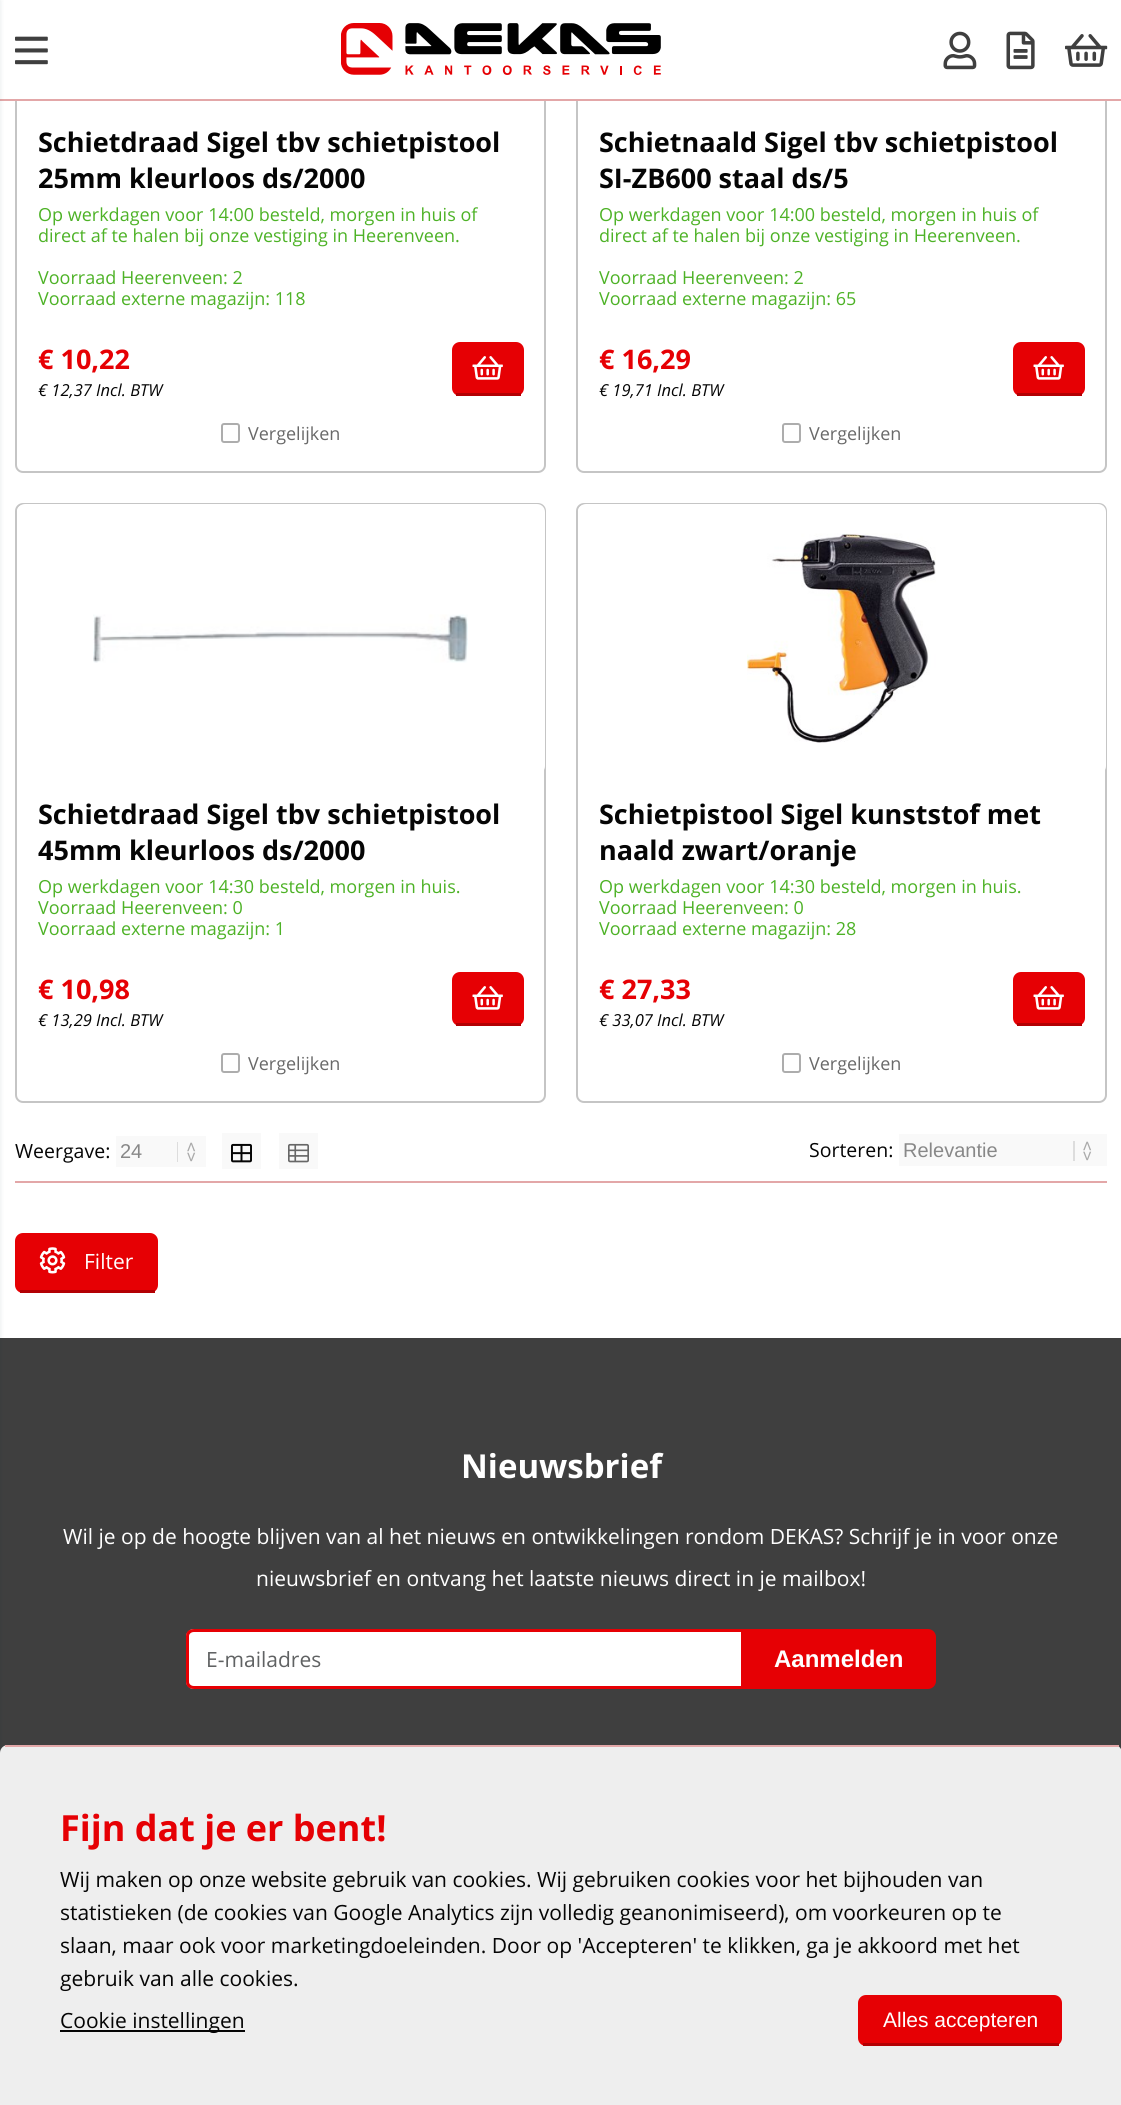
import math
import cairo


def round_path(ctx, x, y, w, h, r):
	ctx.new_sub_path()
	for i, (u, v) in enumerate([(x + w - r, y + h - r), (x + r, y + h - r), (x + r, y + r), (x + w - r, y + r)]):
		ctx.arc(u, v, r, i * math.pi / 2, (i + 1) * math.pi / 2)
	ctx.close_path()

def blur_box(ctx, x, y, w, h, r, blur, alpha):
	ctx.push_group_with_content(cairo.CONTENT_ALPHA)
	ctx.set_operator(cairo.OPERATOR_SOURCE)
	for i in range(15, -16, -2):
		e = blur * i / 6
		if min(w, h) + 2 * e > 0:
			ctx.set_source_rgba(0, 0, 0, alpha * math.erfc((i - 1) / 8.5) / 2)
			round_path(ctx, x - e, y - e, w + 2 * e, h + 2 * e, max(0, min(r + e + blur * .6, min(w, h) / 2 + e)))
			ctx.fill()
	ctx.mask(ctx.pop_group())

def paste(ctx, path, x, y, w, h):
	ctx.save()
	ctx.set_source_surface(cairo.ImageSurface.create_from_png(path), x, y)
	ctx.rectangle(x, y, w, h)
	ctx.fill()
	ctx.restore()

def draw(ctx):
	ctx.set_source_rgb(1, 1, 1)
	ctx.paint()
	round_path(ctx, 16, -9, 529, 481, 7)
	ctx.set_source_rgb(0.773, 0.773, 0.773)
	ctx.stroke()
	ctx.set_source_rgb(1, 1, 1)
	round_path(ctx, 17, -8, 528, 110, 8)
	ctx.fill()
	round_path(ctx, 577, -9, 529, 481, 7)
	ctx.set_source_rgb(0.773, 0.773, 0.773)
	ctx.stroke()
	ctx.set_source_rgb(1, 1, 1)
	round_path(ctx, 578, -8, 528, 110, 8)
	ctx.fill()
	ctx.set_source_rgb(0.89, 0.655, 0.659)
	ctx.rectangle(0, 99, 1121, 2)
	ctx.fill()
	ctx.set_source_rgb(0.247, 0.247, 0.247)
	ctx.rectangle(0, 1338, 1121, 415)
	ctx.fill()
	ctx.set_source_rgb(0.027, 0.169, 0.196)
	blur_box(ctx, -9, 0, 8, 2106, 0, 3, 0.15)
	ctx.set_source_rgb(1, 1, 1)
	ctx.rectangle(15, 0, 1092, 99)
	ctx.fill()
	paste(ctx, 'media/1.png', 15, 36, 33, 29)
	paste(ctx, 'media/2.png', 341, 23, 320, 52)
	paste(ctx, 'media/3.png', 943, 31, 34, 39)
	paste(ctx, 'media/4.png', 1006, 31, 29, 39)
	paste(ctx, 'media/5.png', 1065, 34, 43, 33)
	ctx.select_font_face('Open Sans', cairo.FONT_SLANT_NORMAL, cairo.FONT_WEIGHT_BOLD)
	ctx.set_font_size(27)
	ctx.set_source_rgb(0.02, 0.02, 0.02)
	ctx.move_to(38, 152)
	ctx.show_text('Schietdraad Sigel tbv schietpistool')
	ctx.move_to(38, 188)
	ctx.show_text('25mm kleurloos ds/2000')
	ctx.select_font_face('Open Sans')
	ctx.set_font_size(18)
	ctx.set_source_rgb(0.302, 0.698, 0.149)
	for x, y, s in [
		(38, 221, 'Op werkdagen voor 14:00 besteld, morgen in huis of'),
		(38, 242, 'direct af te halen bij onze vestiging in Heerenveen.'),
		(38, 284, 'Voorraad Heerenveen: 2'),
		(38, 305, 'Voorraad externe magazijn: 118'),
	]:
		ctx.move_to(x, y)
		ctx.show_text(s)
	ctx.select_font_face('Open Sans', cairo.FONT_SLANT_NORMAL, cairo.FONT_WEIGHT_BOLD)
	ctx.set_font_size(27)
	ctx.set_source_rgb(0.902, 0, 0.016)
	ctx.move_to(38, 369)
	ctx.show_text('€ 10,22')
	ctx.select_font_face('Open Sans', cairo.FONT_SLANT_ITALIC)
	ctx.set_font_size(16.5)
	ctx.set_source_rgb(0.02, 0.02, 0.02)
	ctx.move_to(38, 396)
	ctx.show_text('€ 12,37 Incl. BTW')
	ctx.set_source_rgb(0.902, 0, 0.016)
	round_path(ctx, 452, 342, 72, 54, 8)
	ctx.fill()
	ctx.set_source_rgb(0.702, 0, 0.012)
	ctx.rectangle(456, 393, 65, 3)
	ctx.fill()
	paste(ctx, 'media/6.png', 472, 356, 31, 24)
	round_path(ctx, 222, 424, 17, 18, 2)
	ctx.set_source_rgb(0.678, 0.678, 0.678)
	ctx.stroke()
	ctx.select_font_face('Open Sans')
	ctx.set_font_size(18)
	ctx.set_source_rgb(0.412, 0.412, 0.412)
	ctx.move_to(248, 440)
	ctx.show_text('Vergelijken')
	ctx.select_font_face('Open Sans', cairo.FONT_SLANT_NORMAL, cairo.FONT_WEIGHT_BOLD)
	ctx.set_font_size(27)
	ctx.set_source_rgb(0.02, 0.02, 0.02)
	ctx.move_to(599, 152)
	ctx.show_text('Schietnaald Sigel tbv schietpistool')
	ctx.move_to(599, 188)
	ctx.show_text('SI-ZB600 staal ds/5')
	ctx.select_font_face('Open Sans')
	ctx.set_font_size(18)
	ctx.set_source_rgb(0.302, 0.698, 0.149)
	for x, y, s in [
		(599, 221, 'Op werkdagen voor 14:00 besteld, morgen in huis of'),
		(599, 242, 'direct af te halen bij onze vestiging in Heerenveen.'),
		(599, 284, 'Voorraad Heerenveen: 2'),
		(599, 305, 'Voorraad externe magazijn: 65'),
	]:
		ctx.move_to(x, y)
		ctx.show_text(s)
	ctx.select_font_face('Open Sans', cairo.FONT_SLANT_NORMAL, cairo.FONT_WEIGHT_BOLD)
	ctx.set_font_size(27)
	ctx.set_source_rgb(0.902, 0, 0.016)
	ctx.move_to(599, 369)
	ctx.show_text('€ 16,29')
	ctx.select_font_face('Open Sans', cairo.FONT_SLANT_ITALIC)
	ctx.set_font_size(16.5)
	ctx.set_source_rgb(0.02, 0.02, 0.02)
	ctx.move_to(599, 396)
	ctx.show_text('€ 19,71 Incl. BTW')
	ctx.set_source_rgb(0.902, 0, 0.016)
	round_path(ctx, 1013, 342, 72, 54, 8)
	ctx.fill()
	ctx.set_source_rgb(0.702, 0, 0.012)
	ctx.rectangle(1017, 393, 65, 3)
	ctx.fill()
	paste(ctx, 'media/6.png', 1033, 356, 31, 24)
	round_path(ctx, 783, 424, 17, 18, 2)
	ctx.set_source_rgb(0.678, 0.678, 0.678)
	ctx.stroke()
	ctx.select_font_face('Open Sans')
	ctx.set_font_size(18)
	ctx.set_source_rgb(0.412, 0.412, 0.412)
	ctx.move_to(809, 440)
	ctx.show_text('Vergelijken')
	round_path(ctx, 16, 504, 529, 598, 7)
	ctx.set_source_rgb(0.773, 0.773, 0.773)
	ctx.stroke()
	ctx.set_source_rgb(1, 1, 1)
	round_path(ctx, 17, 504, 528, 270, 8)
	ctx.fill()
	paste(ctx, 'media/7.png', 93, 614, 375, 49)
	ctx.select_font_face('Open Sans', cairo.FONT_SLANT_NORMAL, cairo.FONT_WEIGHT_BOLD)
	ctx.set_font_size(27)
	ctx.set_source_rgb(0.02, 0.02, 0.02)
	ctx.move_to(38, 824)
	ctx.show_text('Schietdraad Sigel tbv schietpistool')
	ctx.move_to(38, 860)
	ctx.show_text('45mm kleurloos ds/2000')
	ctx.select_font_face('Open Sans')
	ctx.set_font_size(18)
	ctx.set_source_rgb(0.302, 0.698, 0.149)
	for x, y, s in [
		(38, 893, 'Op werkdagen voor 14:30 besteld, morgen in huis.'),
		(38, 914, 'Voorraad Heerenveen: 0'),
		(38, 935, 'Voorraad externe magazijn: 1'),
	]:
		ctx.move_to(x, y)
		ctx.show_text(s)
	ctx.select_font_face('Open Sans', cairo.FONT_SLANT_NORMAL, cairo.FONT_WEIGHT_BOLD)
	ctx.set_font_size(27)
	ctx.set_source_rgb(0.902, 0, 0.016)
	ctx.move_to(38, 999)
	ctx.show_text('€ 10,98')
	ctx.select_font_face('Open Sans', cairo.FONT_SLANT_ITALIC)
	ctx.set_font_size(16.5)
	ctx.set_source_rgb(0.02, 0.02, 0.02)
	ctx.move_to(38, 1026)
	ctx.show_text('€ 13,29 Incl. BTW')
	ctx.set_source_rgb(0.902, 0, 0.016)
	round_path(ctx, 452, 972, 72, 54, 8)
	ctx.fill()
	ctx.set_source_rgb(0.702, 0, 0.012)
	ctx.rectangle(456, 1023, 65, 3)
	ctx.fill()
	paste(ctx, 'media/6.png', 472, 986, 31, 24)
	round_path(ctx, 222, 1054, 17, 18, 2)
	ctx.set_source_rgb(0.678, 0.678, 0.678)
	ctx.stroke()
	ctx.select_font_face('Open Sans')
	ctx.set_font_size(18)
	ctx.set_source_rgb(0.412, 0.412, 0.412)
	ctx.move_to(248, 1070)
	ctx.show_text('Vergelijken')
	round_path(ctx, 577, 504, 529, 598, 7)
	ctx.set_source_rgb(0.773, 0.773, 0.773)
	ctx.stroke()
	ctx.set_source_rgb(1, 1, 1)
	round_path(ctx, 578, 504, 528, 270, 8)
	ctx.fill()
	paste(ctx, 'media/8.png', 747, 533, 189, 210)
	ctx.select_font_face('Open Sans', cairo.FONT_SLANT_NORMAL, cairo.FONT_WEIGHT_BOLD)
	ctx.set_font_size(27)
	ctx.set_source_rgb(0.02, 0.02, 0.02)
	ctx.move_to(599, 824)
	ctx.show_text('Schietpistool Sigel kunststof met')
	ctx.move_to(599, 860)
	ctx.show_text('naald zwart/oranje')
	ctx.select_font_face('Open Sans')
	ctx.set_font_size(18)
	ctx.set_source_rgb(0.302, 0.698, 0.149)
	for x, y, s in [
		(599, 893, 'Op werkdagen voor 14:30 besteld, morgen in huis.'),
		(599, 914, 'Voorraad Heerenveen: 0'),
		(599, 935, 'Voorraad externe magazijn: 28'),
	]:
		ctx.move_to(x, y)
		ctx.show_text(s)
	ctx.select_font_face('Open Sans', cairo.FONT_SLANT_NORMAL, cairo.FONT_WEIGHT_BOLD)
	ctx.set_font_size(27)
	ctx.set_source_rgb(0.902, 0, 0.016)
	ctx.move_to(599, 999)
	ctx.show_text('€ 27,33')
	ctx.select_font_face('Open Sans', cairo.FONT_SLANT_ITALIC)
	ctx.set_font_size(16.5)
	ctx.set_source_rgb(0.02, 0.02, 0.02)
	ctx.move_to(599, 1026)
	ctx.show_text('€ 33,07 Incl. BTW')
	ctx.set_source_rgb(0.902, 0, 0.016)
	round_path(ctx, 1013, 972, 72, 54, 8)
	ctx.fill()
	ctx.set_source_rgb(0.702, 0, 0.012)
	ctx.rectangle(1017, 1023, 65, 3)
	ctx.fill()
	paste(ctx, 'media/6.png', 1033, 986, 31, 24)
	round_path(ctx, 783, 1054, 17, 18, 2)
	ctx.set_source_rgb(0.678, 0.678, 0.678)
	ctx.stroke()
	ctx.select_font_face('Open Sans')
	ctx.set_font_size(18)
	ctx.set_source_rgb(0.412, 0.412, 0.412)
	ctx.move_to(809, 1070)
	ctx.show_text('Vergelijken')
	ctx.set_font_size(19.5)
	ctx.set_source_rgb(0.02, 0.02, 0.02)
	ctx.move_to(15, 1158)
	ctx.show_text('Weergave:')
	ctx.set_source_rgb(0.973, 0.973, 0.973)
	ctx.rectangle(116, 1136, 90, 31)
	ctx.fill()
	ctx.select_font_face('Liberation Sans')
	ctx.set_font_size(20)
	ctx.set_source_rgb(0.533, 0.533, 0.533)
	ctx.move_to(120, 1158)
	ctx.show_text('24')
	ctx.set_source_rgb(0.867, 0.867, 0.867)
	ctx.rectangle(177, 1142, 1, 20)
	ctx.fill()
	ctx.select_font_face('DejaVu Sans Mono')
	ctx.set_font_size(16.5)
	ctx.set_source_rgb(0.667, 0.667, 0.667)
	ctx.save()
	ctx.translate(186, 1142)
	ctx.rotate(90 * math.pi / 180)
	ctx.move_to(0, 0)
	ctx.show_text('<>')
	ctx.restore()
	ctx.set_source_rgb(0.973, 0.973, 0.973)
	ctx.rectangle(222, 1133, 39, 36)
	ctx.fill()
	paste(ctx, 'media/9.png', 231, 1143, 21, 20)
	ctx.rectangle(279, 1133, 39, 36)
	ctx.fill()
	paste(ctx, 'media/10.png', 288, 1143, 21, 20)
	ctx.select_font_face('Open Sans')
	ctx.set_font_size(19.5)
	ctx.set_source_rgb(0.02, 0.02, 0.02)
	ctx.move_to(809, 1157)
	ctx.show_text('Sorteren:')
	ctx.set_source_rgb(0.973, 0.973, 0.973)
	ctx.rectangle(899, 1134, 208, 32)
	ctx.fill()
	ctx.select_font_face('Liberation Sans')
	ctx.set_font_size(20)
	ctx.set_source_rgb(0.533, 0.533, 0.533)
	ctx.move_to(903, 1157)
	ctx.show_text('Relevantie')
	ctx.set_source_rgb(0.867, 0.867, 0.867)
	ctx.rectangle(1073, 1141, 2, 20)
	ctx.fill()
	ctx.select_font_face('DejaVu Sans Mono')
	ctx.set_font_size(16.5)
	ctx.set_source_rgb(0.667, 0.667, 0.667)
	ctx.save()
	ctx.translate(1082, 1141)
	ctx.rotate(90 * math.pi / 180)
	ctx.move_to(0, 0)
	ctx.show_text('<>')
	ctx.restore()
	ctx.set_source_rgb(0.89, 0.655, 0.659)
	ctx.rectangle(15, 1181, 1092, 2)
	ctx.fill()
	ctx.set_source_rgb(0.902, 0, 0.016)
	round_path(ctx, 15, 1233, 143, 60, 8)
	ctx.fill()
	ctx.set_source_rgb(0.702, 0, 0.012)
	ctx.rectangle(20, 1290, 135, 3)
	ctx.fill()
	paste(ctx, 'media/11.png', 39, 1247, 27, 27)
	ctx.select_font_face('Open Sans')
	ctx.set_font_size(21)
	ctx.set_source_rgb(1, 1, 1)
	ctx.move_to(84, 1269)
	ctx.show_text('Filter')
	ctx.select_font_face('Open Sans', cairo.FONT_SLANT_NORMAL, cairo.FONT_WEIGHT_BOLD)
	ctx.set_font_size(33)
	ctx.move_to(461, 1478)
	ctx.show_text('Nieuwsbrief')
	ctx.select_font_face('Open Sans')
	ctx.set_font_size(21)
	ctx.move_to(63, 1544)
	ctx.show_text('Wil je op de hoogte blijven van al het nieuws en ontwikkelingen rondom DEKAS? Schrijf je in voor onze')
	ctx.move_to(256, 1586)
	ctx.show_text('nieuwsbrief en ontvang het laatste nieuws direct in je mailbox!')
	ctx.new_path()
	ctx.move_to(194, 1629)
	ctx.line_to(741, 1629)
	ctx.line_to(741, 1689)
	ctx.line_to(194, 1689)
	ctx.curve_to(189.5, 1689, 186, 1685.5, 186, 1681)
	ctx.line_to(186, 1637)
	ctx.curve_to(186, 1632.5, 189.5, 1629, 194, 1629)
	ctx.close_path()
	ctx.fill()
	ctx.set_source_rgb(0.902, 0, 0.016)
	ctx.set_fill_rule(cairo.FILL_RULE_EVEN_ODD)
	ctx.new_path()
	ctx.move_to(194, 1629)
	ctx.line_to(741, 1629)
	ctx.line_to(741, 1689)
	ctx.line_to(194, 1689)
	ctx.curve_to(189, 1689, 186, 1686, 186, 1682)
	ctx.line_to(186, 1636)
	ctx.curve_to(186, 1632, 189, 1629, 194, 1629)
	ctx.close_path()
	ctx.move_to(194, 1632)
	ctx.line_to(741, 1632)
	ctx.line_to(741, 1686)
	ctx.line_to(194, 1686)
	ctx.curve_to(191, 1686, 189, 1684, 189, 1682)
	ctx.line_to(189, 1636)
	ctx.curve_to(189, 1634, 191, 1632, 194, 1632)
	ctx.close_path()
	ctx.fill()
	ctx.set_source_rgb(0.376, 0.384, 0.388)
	ctx.move_to(206, 1667)
	ctx.show_text('E-mailadres')
	ctx.set_source_rgb(0.902, 0, 0.016)
	ctx.new_path()
	ctx.move_to(742.5, 1630.5)
	ctx.line_to(928, 1630.5)
	ctx.curve_to(931.5, 1630.5, 934.5, 1633.5, 934.5, 1637)
	ctx.line_to(934.5, 1681)
	ctx.curve_to(934.5, 1684.5, 931.5, 1687.5, 928, 1687.5)
	ctx.line_to(742.5, 1687.5)
	ctx.close_path()
	ctx.fill_preserve()
	ctx.set_line_width(3)
	ctx.stroke()
	ctx.select_font_face('Liberation Sans', cairo.FONT_SLANT_NORMAL, cairo.FONT_WEIGHT_BOLD)
	ctx.set_font_size(24)
	ctx.set_source_rgb(1, 1, 1)
	ctx.move_to(774, 1667)
	ctx.show_text('Aanmelden')
	ctx.set_source_rgb(0.933, 0.933, 0.933)
	ctx.new_path()
	ctx.move_to(8, 1745)
	ctx.line_to(1114, 1745)
	ctx.curve_to(1118.5, 1745, 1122, 1748.5, 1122, 1753)
	ctx.line_to(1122, 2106)
	ctx.line_to(0, 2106)
	ctx.line_to(0, 1753)
	ctx.curve_to(0, 1748.5, 3.5, 1745, 8, 1745)
	ctx.close_path()
	ctx.fill()
	ctx.set_source_rgb(0.89, 0.655, 0.659)
	ctx.rectangle(5, 1745, 1114, 2)
	ctx.fill()
	ctx.select_font_face('Open Sans', cairo.FONT_SLANT_NORMAL, cairo.FONT_WEIGHT_BOLD)
	ctx.set_font_size(36)
	ctx.set_source_rgb(0.902, 0, 0.016)
	ctx.move_to(60, 1841)
	ctx.show_text('Fijn dat je er bent!')
	ctx.select_font_face('Open Sans')
	ctx.set_font_size(21)
	ctx.set_source_rgb(0.02, 0.02, 0.02)
	for x, y, s in [
		(60, 1887, 'Wij maken op onze website gebruik van cookies. Wij gebruiken cookies voor het bijhouden van'),
		(60, 1920, 'statistieken (de cookies van Google Analytics zijn volledig geanonimiseerd), om voorkeuren op te'),
		(60, 1953, 'slaan, maar ook voor marketingdoeleinden. Door op \'Accepteren\' te klikken, ga je akkoord met het'),
		(60, 1986, 'gebruik van alle cookies.'),
	]:
		ctx.move_to(x, y)
		ctx.show_text(s)
	ctx.rectangle(60, 2030, 185, 2)
	ctx.fill()
	ctx.move_to(60, 2028)
	ctx.show_text('Cookie instellingen')
	ctx.set_source_rgb(0.902, 0, 0.016)
	round_path(ctx, 858, 1995, 204, 51, 8)
	ctx.fill()
	ctx.set_source_rgb(0.702, 0, 0.012)
	ctx.rectangle(863, 2043, 196, 3)
	ctx.fill()
	ctx.select_font_face('Liberation Sans')
	ctx.set_source_rgb(1, 1, 1)
	ctx.move_to(883, 2027)
	ctx.show_text('Alles accepteren')


surface = cairo.ImageSurface(cairo.FORMAT_RGB24, 1121, 2105)
ctx = cairo.Context(surface)
options = cairo.FontOptions()
options.set_hint_metrics(cairo.HINT_METRICS_OFF)
options.set_hint_style(cairo.HINT_STYLE_NONE)
ctx.set_font_options(options)
ctx.set_miter_limit(4)
draw(ctx)
surface.write_to_png('image.png')
